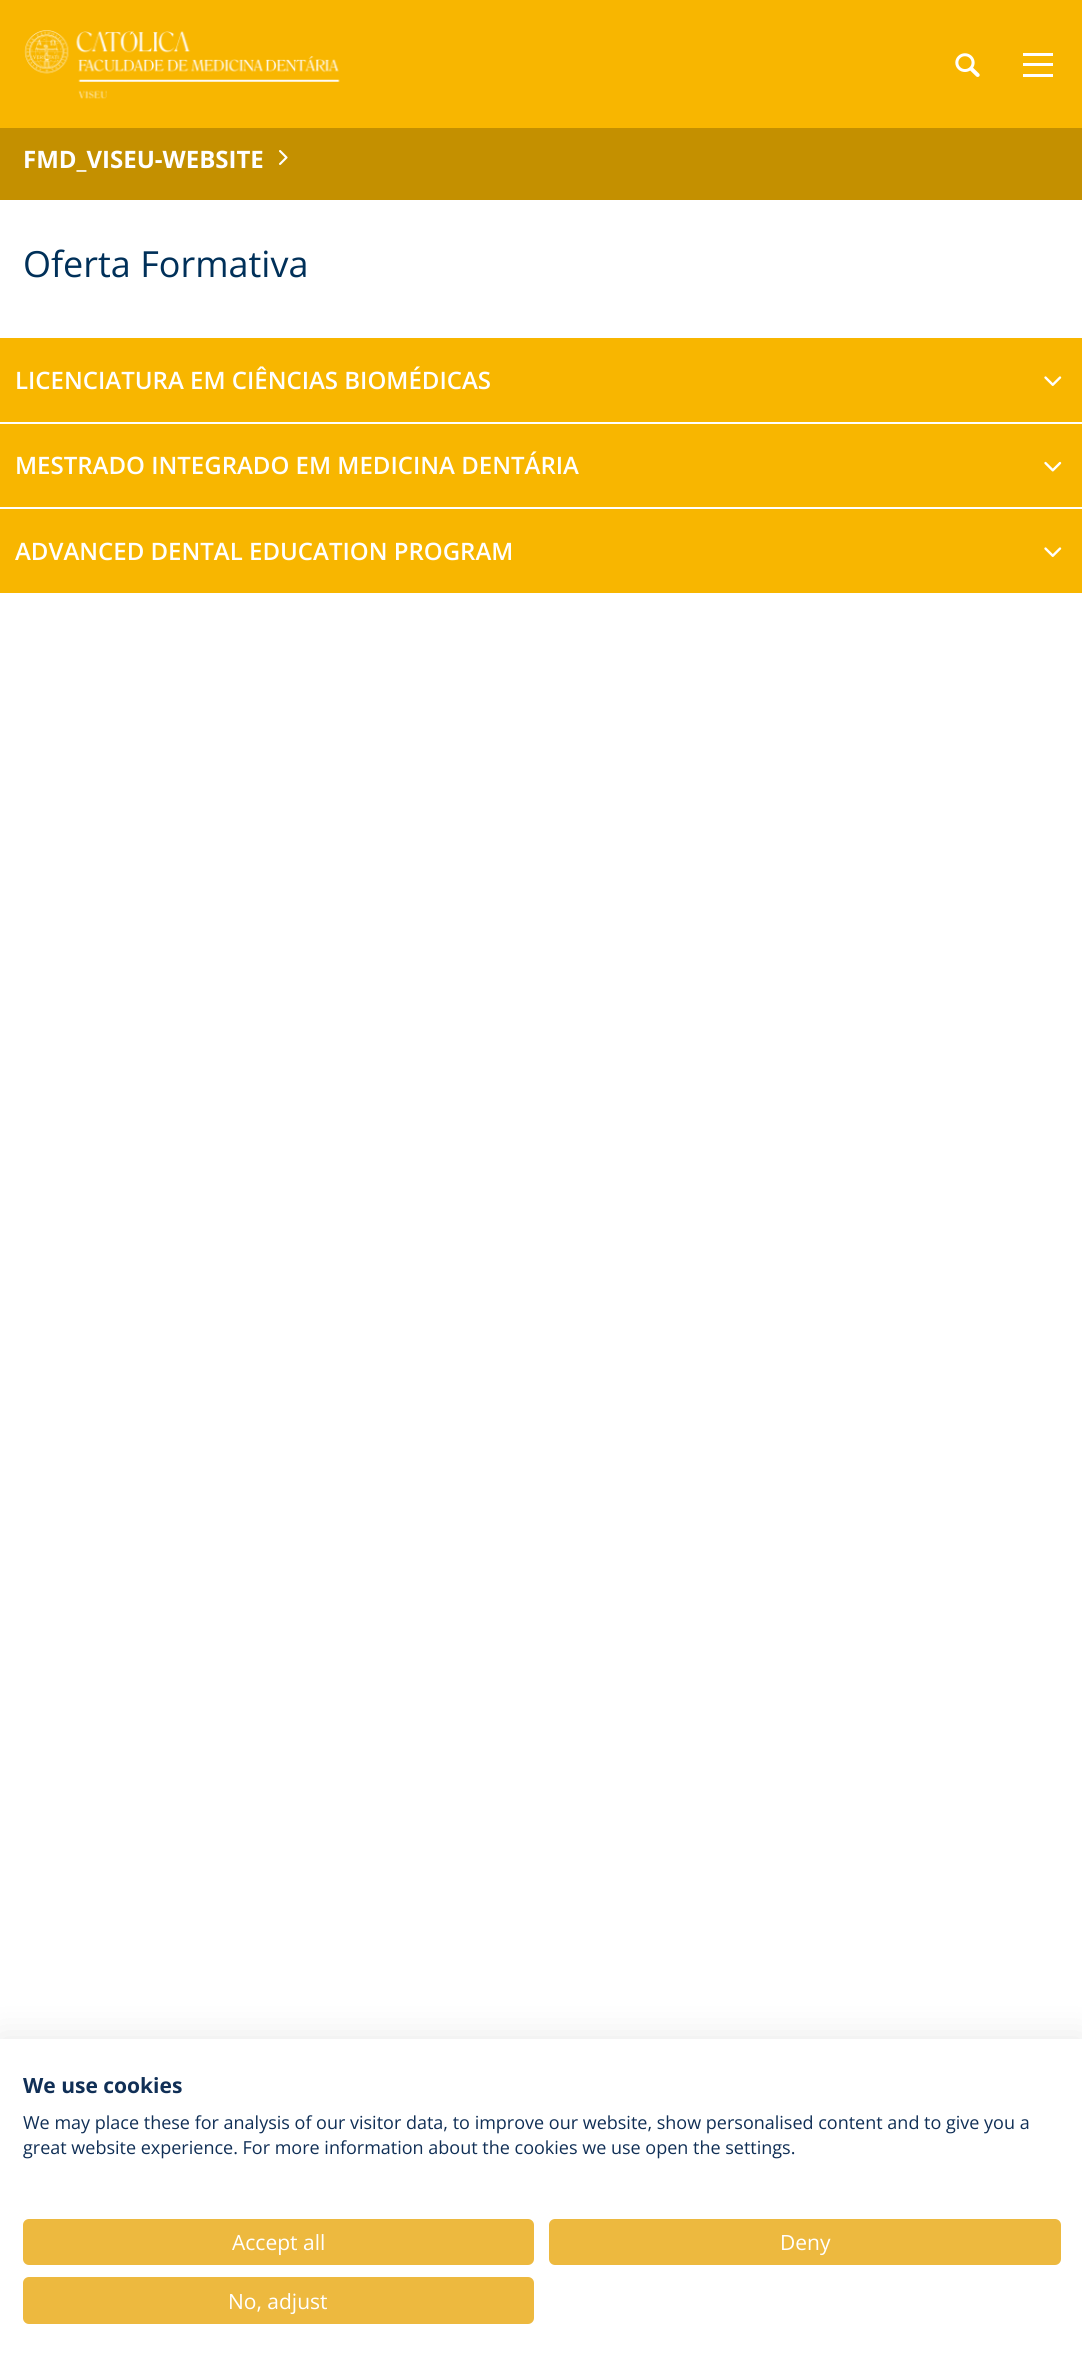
import math
import cairo


def round_path(ctx, x, y, w, h, r):
	ctx.new_sub_path()
	for i, (u, v) in enumerate([(x + w - r, y + h - r), (x + r, y + h - r), (x + r, y + r), (x + w - r, y + r)]):
		ctx.arc(u, v, r, i * math.pi / 2, (i + 1) * math.pi / 2)
	ctx.close_path()

def blur_box(ctx, x, y, w, h, r, blur, alpha):
	ctx.push_group_with_content(cairo.CONTENT_ALPHA)
	ctx.set_operator(cairo.OPERATOR_SOURCE)
	for i in range(15, -16, -2):
		e = blur * i / 6
		if min(w, h) + 2 * e > 0:
			ctx.set_source_rgba(0, 0, 0, alpha * math.erfc((i - 1) / 8.5) / 2)
			round_path(ctx, x - e, y - e, w + 2 * e, h + 2 * e, max(0, min(r + e + blur * .6, min(w, h) / 2 + e)))
			ctx.fill()
	ctx.mask(ctx.pop_group())

def paste(ctx, path, x, y, w, h):
	ctx.save()
	ctx.set_source_surface(cairo.ImageSurface.create_from_png(path), x, y)
	ctx.rectangle(x, y, w, h)
	ctx.fill()
	ctx.restore()

def draw(ctx):
	ctx.set_source_rgb(1, 1, 1)
	ctx.paint()
	ctx.set_source_rgb(0.969, 0.714, 0)
	ctx.rectangle(0, 0, 1082, 128)
	ctx.fill()
	paste(ctx, 'media/1.png', 24, 30, 316, 69)
	paste(ctx, 'media/2.png', 955, 53, 25, 24)
	ctx.set_source_rgb(1, 1, 1)
	ctx.rectangle(1023, 53, 30, 3)
	ctx.rectangle(1023, 63, 30, 3)
	ctx.rectangle(1023, 74, 30, 3)
	ctx.fill()
	ctx.set_source_rgb(0.769, 0.565, 0)
	ctx.rectangle(0, 128, 1082, 72)
	ctx.fill()
	ctx.select_font_face('Open Sans', cairo.FONT_SLANT_NORMAL, cairo.FONT_WEIGHT_BOLD)
	ctx.set_font_size(24)
	ctx.set_source_rgb(1, 1, 1)
	ctx.move_to(23, 168)
	ctx.show_text('FMD_VISEU-WEBSITE')
	paste(ctx, 'media/3.png', 279, 150, 9, 15)
	ctx.select_font_face('Open Sans')
	ctx.set_font_size(36)
	ctx.set_source_rgb(0, 0.188, 0.349)
	ctx.move_to(23, 277)
	ctx.show_text('Oferta Formativa')
	ctx.set_source_rgb(0.969, 0.714, 0)
	ctx.rectangle(0, 338, 1082, 84)
	ctx.fill()
	ctx.select_font_face('Open Sans SemiBold')
	ctx.set_font_size(24)
	ctx.set_source_rgb(1, 1, 1)
	ctx.move_to(15, 389)
	ctx.show_text('LICENCIATURA EM CIÊNCIAS BIOMÉDICAS')
	paste(ctx, 'media/4.png', 1044, 376, 18, 10)
	ctx.set_source_rgb(0.969, 0.714, 0)
	ctx.rectangle(0, 424, 1082, 83)
	ctx.fill()
	ctx.set_source_rgb(1, 1, 1)
	ctx.move_to(15, 474)
	ctx.show_text('MESTRADO INTEGRADO EM MEDICINA DENTÁRIA')
	paste(ctx, 'media/5.png', 1044, 461, 18, 11)
	ctx.set_source_rgb(0.969, 0.714, 0)
	ctx.rectangle(0, 509, 1082, 84)
	ctx.fill()
	ctx.set_source_rgb(1, 1, 1)
	ctx.move_to(15, 560)
	ctx.show_text('ADVANCED DENTAL EDUCATION PROGRAM')
	paste(ctx, 'media/4.png', 1044, 547, 18, 10)
	ctx.set_source_rgb(0, 0, 0)
	blur_box(ctx, 0, 2039, 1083, 325, 0, 18, 0.1)
	ctx.set_source_rgb(1, 1, 1)
	ctx.rectangle(0, 2039, 1082, 325)
	ctx.fill()
	ctx.select_font_face('Open Sans', cairo.FONT_SLANT_NORMAL, cairo.FONT_WEIGHT_BOLD)
	ctx.set_font_size(21)
	ctx.set_source_rgb(0.063, 0.184, 0.337)
	ctx.move_to(23, 2093)
	ctx.show_text('We use cookies')
	ctx.select_font_face('Open Sans')
	ctx.set_font_size(18)
	ctx.move_to(23, 2129)
	ctx.show_text('We may place these for analysis of our visitor data, to improve our website, show personalised content and to give you a')
	ctx.move_to(23, 2154)
	ctx.show_text('great website experience. For more information about the cookies we use open the settings.')
	ctx.set_source_rgb(0.929, 0.725, 0.247)
	round_path(ctx, 24, 2220, 509, 44, 5)
	ctx.fill_preserve()
	ctx.stroke()
	ctx.set_font_size(21)
	ctx.set_source_rgb(1, 1, 1)
	ctx.move_to(232, 2250)
	ctx.show_text('Accept all')
	ctx.set_source_rgb(0.929, 0.725, 0.247)
	round_path(ctx, 550, 2220, 510, 44, 5)
	ctx.fill_preserve()
	ctx.stroke()
	ctx.set_source_rgb(1, 1, 1)
	ctx.move_to(780, 2250)
	ctx.show_text('Deny')
	ctx.set_source_rgb(0.929, 0.725, 0.247)
	round_path(ctx, 24, 2278, 509, 45, 5)
	ctx.fill_preserve()
	ctx.stroke()
	ctx.set_source_rgb(1, 1, 1)
	ctx.move_to(228, 2309)
	ctx.show_text('No, adjust')


surface = cairo.ImageSurface(cairo.FORMAT_RGB24, 1082, 2364)
ctx = cairo.Context(surface)
options = cairo.FontOptions()
options.set_hint_metrics(cairo.HINT_METRICS_OFF)
options.set_hint_style(cairo.HINT_STYLE_NONE)
ctx.set_font_options(options)
ctx.set_miter_limit(4)
draw(ctx)
surface.write_to_png('image.png')
